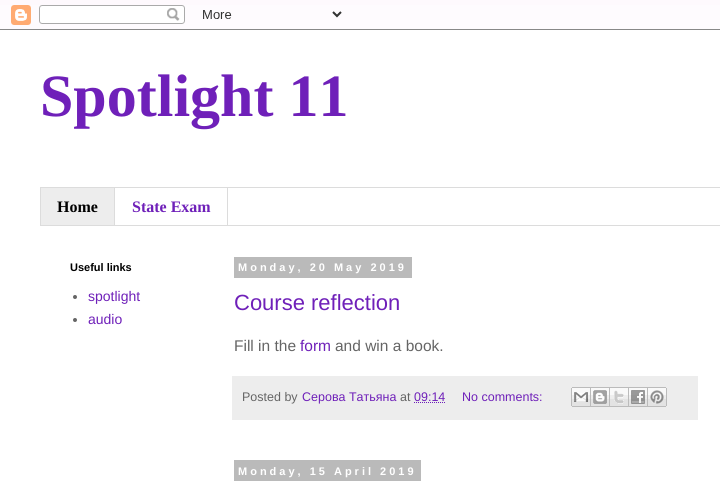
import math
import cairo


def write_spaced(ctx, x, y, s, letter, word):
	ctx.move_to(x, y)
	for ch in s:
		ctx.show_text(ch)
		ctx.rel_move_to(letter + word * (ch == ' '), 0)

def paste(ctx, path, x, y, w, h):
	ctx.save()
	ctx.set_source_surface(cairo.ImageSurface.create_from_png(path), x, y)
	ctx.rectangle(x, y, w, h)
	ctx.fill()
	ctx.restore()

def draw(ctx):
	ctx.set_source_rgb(0.996, 0.976, 0.992)
	ctx.paint()
	paste(ctx, 'media/1.png', 0, 5, 720, 25)
	ctx.set_source_rgb(1, 1, 1)
	ctx.rectangle(0, 30, 720, 469)
	ctx.fill()
	ctx.select_font_face('Liberation Serif', cairo.FONT_SLANT_NORMAL, cairo.FONT_WEIGHT_BOLD)
	ctx.set_font_size(60)
	ctx.set_source_rgb(0.435, 0.125, 0.725)
	ctx.move_to(40, 116)
	ctx.show_text('Spotlight 11')
	ctx.rectangle(40.5, 187.5, 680, 38)
	ctx.set_source_rgb(0.863, 0.863, 0.863)
	ctx.set_line_width(1)
	ctx.stroke()
	ctx.set_source_rgb(0.929, 0.929, 0.929)
	ctx.rectangle(41, 188, 73, 37)
	ctx.fill()
	ctx.set_source_rgb(0.863, 0.863, 0.863)
	ctx.rectangle(114, 188, 1, 37)
	ctx.fill()
	ctx.set_font_size(16)
	ctx.set_source_rgb(0, 0, 0)
	ctx.move_to(57, 212)
	ctx.show_text('Home')
	ctx.set_source_rgb(0.863, 0.863, 0.863)
	ctx.rectangle(227, 188, 1, 37)
	ctx.fill()
	ctx.set_source_rgb(0.435, 0.125, 0.725)
	ctx.move_to(132, 212)
	ctx.show_text('State Exam')
	ctx.select_font_face('Liberation Sans', cairo.FONT_SLANT_NORMAL, cairo.FONT_WEIGHT_BOLD)
	ctx.set_font_size(11)
	ctx.set_source_rgb(0, 0, 0)
	ctx.move_to(70, 271)
	ctx.show_text('Useful links')
	ctx.set_source_rgb(0.396, 0.396, 0.396)
	ctx.new_path()
	ctx.arc(75, 297, 2, 0, 2 * math.pi)
	ctx.fill()
	ctx.select_font_face('Liberation Sans')
	ctx.set_font_size(14)
	ctx.set_source_rgb(0.435, 0.125, 0.725)
	ctx.move_to(88, 301)
	ctx.show_text('spotlight')
	ctx.set_source_rgb(0.396, 0.396, 0.396)
	ctx.new_path()
	ctx.arc(75, 320, 2, 0, 2 * math.pi)
	ctx.fill()
	ctx.set_source_rgb(0.435, 0.125, 0.725)
	ctx.move_to(88, 324)
	ctx.show_text('audio')
	ctx.set_source_rgb(0.729, 0.729, 0.729)
	ctx.rectangle(234, 257, 178, 21)
	ctx.fill()
	ctx.select_font_face('Liberation Sans', cairo.FONT_SLANT_NORMAL, cairo.FONT_WEIGHT_BOLD)
	ctx.set_font_size(11)
	ctx.set_source_rgb(1, 1, 1)
	write_spaced(ctx, 238, 271, 'Monday, 20 May 2019', 3, 0)
	ctx.select_font_face('Liberation Sans')
	ctx.set_font_size(22)
	ctx.set_source_rgb(0.435, 0.125, 0.725)
	ctx.move_to(234, 310)
	ctx.show_text('Course reflection')
	ctx.set_font_size(15.5)
	ctx.set_source_rgb(0.396, 0.396, 0.396)
	ctx.move_to(234, 351)
	ctx.show_text('Fill in the')
	ctx.set_source_rgb(0.435, 0.125, 0.725)
	ctx.move_to(300, 351)
	ctx.show_text('form')
	ctx.set_source_rgb(0.396, 0.396, 0.396)
	ctx.move_to(335, 351)
	ctx.show_text('and win a book.')
	ctx.set_source_rgb(0.929, 0.929, 0.929)
	ctx.rectangle(232, 376, 466, 44)
	ctx.fill()
	ctx.set_font_size(12.5)
	ctx.set_source_rgb(0.396, 0.396, 0.396)
	ctx.move_to(242, 401)
	ctx.show_text('Posted by')
	ctx.set_source_rgb(0.435, 0.125, 0.725)
	ctx.move_to(302, 401)
	ctx.show_text('Серова Татьяна')
	ctx.set_source_rgb(0.396, 0.396, 0.396)
	ctx.move_to(400, 401)
	ctx.show_text('at')
	ctx.set_source_rgb(0.435, 0.125, 0.725)
	ctx.move_to(414, 401)
	ctx.show_text('09:14')
	ctx.new_path()
	ctx.move_to(414, 402.5)
	ctx.line_to(445.5, 402.5)
	ctx.set_dash([1, 1])
	ctx.stroke()
	ctx.move_to(462, 401)
	ctx.show_text('No comments:')
	paste(ctx, 'media/2.png', 571, 387, 20, 20)
	paste(ctx, 'media/3.png', 591, 387, 19, 20)
	paste(ctx, 'media/4.png', 610, 387, 19, 20)
	paste(ctx, 'media/5.png', 629, 387, 19, 20)
	paste(ctx, 'media/6.png', 648, 387, 19, 20)
	ctx.set_source_rgb(0.729, 0.729, 0.729)
	ctx.rectangle(234, 460, 187, 21)
	ctx.fill()
	ctx.select_font_face('Liberation Sans', cairo.FONT_SLANT_NORMAL, cairo.FONT_WEIGHT_BOLD)
	ctx.set_font_size(11)
	ctx.set_source_rgb(1, 1, 1)
	write_spaced(ctx, 238, 475, 'Monday, 15 April 2019', 3, 0)


surface = cairo.ImageSurface(cairo.FORMAT_RGB24, 720, 499)
ctx = cairo.Context(surface)
options = cairo.FontOptions()
options.set_hint_metrics(cairo.HINT_METRICS_OFF)
options.set_hint_style(cairo.HINT_STYLE_NONE)
ctx.set_font_options(options)
ctx.set_miter_limit(4)
draw(ctx)
surface.write_to_png('image.png')
